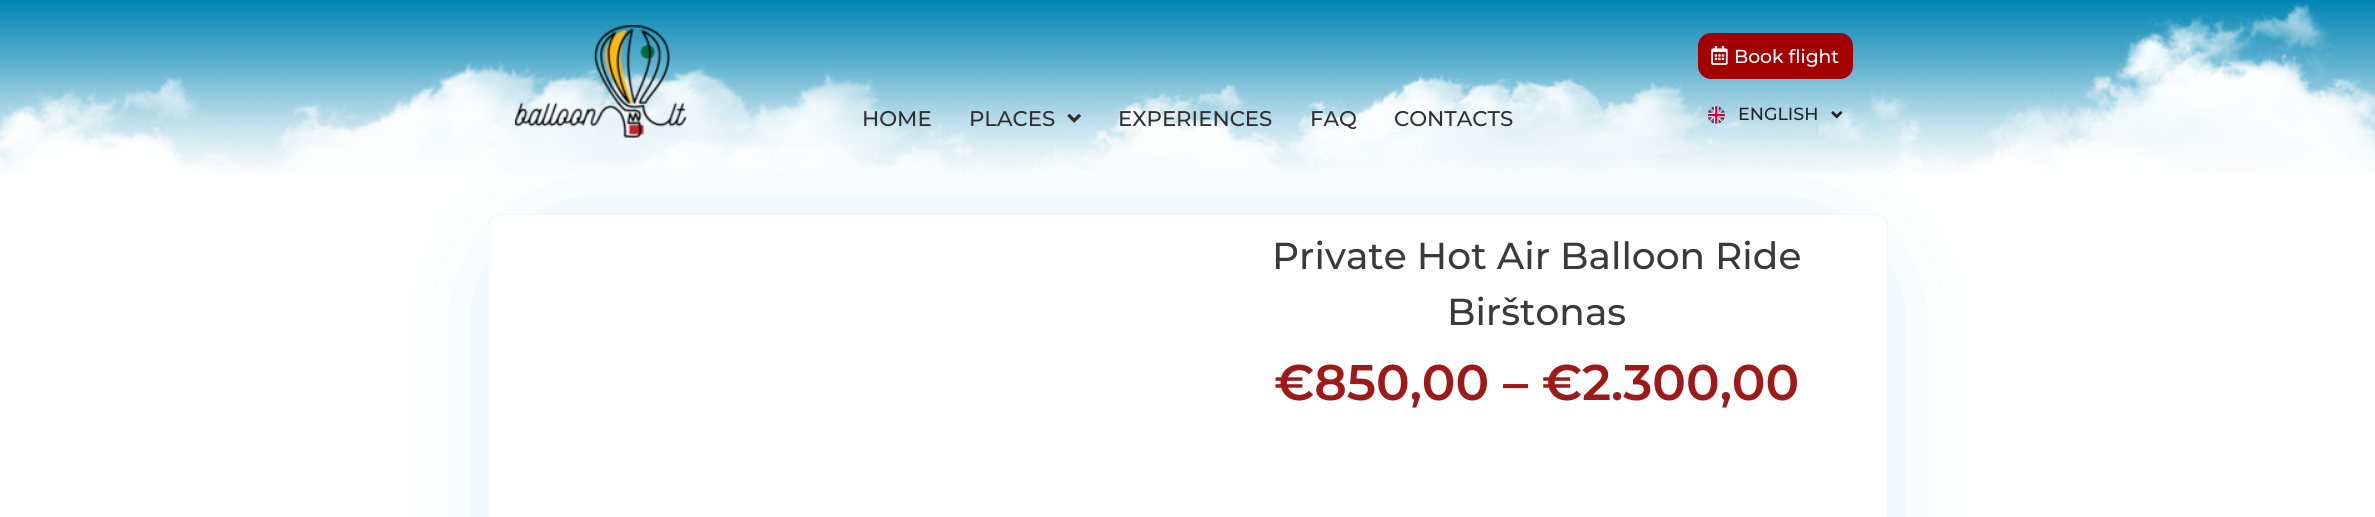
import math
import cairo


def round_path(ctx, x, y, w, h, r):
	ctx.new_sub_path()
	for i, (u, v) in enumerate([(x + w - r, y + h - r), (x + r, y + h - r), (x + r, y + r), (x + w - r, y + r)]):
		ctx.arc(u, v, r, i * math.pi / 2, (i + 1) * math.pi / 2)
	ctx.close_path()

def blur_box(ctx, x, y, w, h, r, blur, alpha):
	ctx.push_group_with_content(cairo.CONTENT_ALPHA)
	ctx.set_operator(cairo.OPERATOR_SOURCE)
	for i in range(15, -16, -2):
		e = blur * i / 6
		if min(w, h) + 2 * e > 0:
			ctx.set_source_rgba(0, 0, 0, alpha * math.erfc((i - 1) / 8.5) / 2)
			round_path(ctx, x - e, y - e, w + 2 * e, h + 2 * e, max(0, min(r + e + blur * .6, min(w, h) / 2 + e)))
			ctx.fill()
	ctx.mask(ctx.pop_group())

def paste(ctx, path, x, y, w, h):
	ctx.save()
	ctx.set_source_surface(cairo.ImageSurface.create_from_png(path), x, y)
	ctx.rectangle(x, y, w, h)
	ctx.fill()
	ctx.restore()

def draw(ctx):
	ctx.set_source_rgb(1, 1, 1)
	ctx.paint()
	gradient = cairo.LinearGradient(1188, 0, 1188, 175)
	gradient.add_color_stop_rgba(0, 0, 0.518, 0.702, 1)
	gradient.add_color_stop_rgba(1, 1, 1, 1, 1)
	ctx.set_source(gradient)
	ctx.rectangle(0, 0, 2375, 173)
	ctx.fill()
	paste(ctx, 'media/1.png', 0, 3, 2375, 172)
	ctx.set_source_rgb(0.431, 0.757, 0.894)
	blur_box(ctx, 563, 289, 1250, 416, 0, 62.5, 1)
	paste(ctx, 'media/2.png', 515, 25, 172, 113)
	ctx.select_font_face('Montserrat Medium')
	ctx.set_font_size(21.25)
	ctx.set_source_rgb(0.188, 0.188, 0.188)
	ctx.move_to(862, 126)
	ctx.show_text('HOME')
	ctx.move_to(969, 126)
	ctx.show_text('PLACES')
	paste(ctx, 'media/3.png', 1067, 114, 14, 9)
	for x, y, s in [
		(1118, 126, 'EXPERIENCES'),
		(1310, 126, 'FAQ'),
		(1394, 126, 'CONTACTS'),
	]:
		ctx.move_to(x, y)
		ctx.show_text(s)
	ctx.set_source_rgb(0.639, 0, 0)
	round_path(ctx, 1701, 36, 149, 40, 10)
	ctx.fill_preserve()
	ctx.set_line_width(6)
	ctx.stroke()
	paste(ctx, 'media/4.png', 1711, 46, 17, 19)
	ctx.set_font_size(18.75)
	ctx.set_source_rgb(1, 1, 1)
	ctx.move_to(1734, 63)
	ctx.show_text('Book flight')
	paste(ctx, 'media/5.png', 1708, 106, 17, 18)
	ctx.set_font_size(17.5)
	ctx.set_source_rgb(0.137, 0.137, 0.137)
	ctx.move_to(1738, 120)
	ctx.show_text('ENGLISH')
	paste(ctx, 'media/6.png', 1831, 111, 12, 8)
	ctx.set_source_rgb(1, 1, 1)
	round_path(ctx, 488.5, 214.5, 1399, 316, 12.5)
	ctx.fill_preserve()
	ctx.set_source_rgb(0.918, 0.973, 0.992)
	ctx.set_line_width(1)
	ctx.stroke()
	ctx.set_font_size(37.5)
	ctx.set_source_rgb(0.227, 0.227, 0.227)
	ctx.move_to(1272, 269)
	ctx.show_text('Private Hot Air Balloon Ride')
	ctx.move_to(1447, 325)
	ctx.show_text('Birštonas')
	ctx.select_font_face('Montserrat SemiBold')
	ctx.set_font_size(50)
	ctx.set_source_rgb(0.624, 0.098, 0.098)
	ctx.move_to(1274, 400)
	ctx.show_text('€850,00 – €2.300,00')


surface = cairo.ImageSurface(cairo.FORMAT_RGB24, 2375, 517)
ctx = cairo.Context(surface)
options = cairo.FontOptions()
options.set_hint_metrics(cairo.HINT_METRICS_OFF)
options.set_hint_style(cairo.HINT_STYLE_NONE)
ctx.set_font_options(options)
ctx.set_miter_limit(4)
draw(ctx)
surface.write_to_png('image.png')
